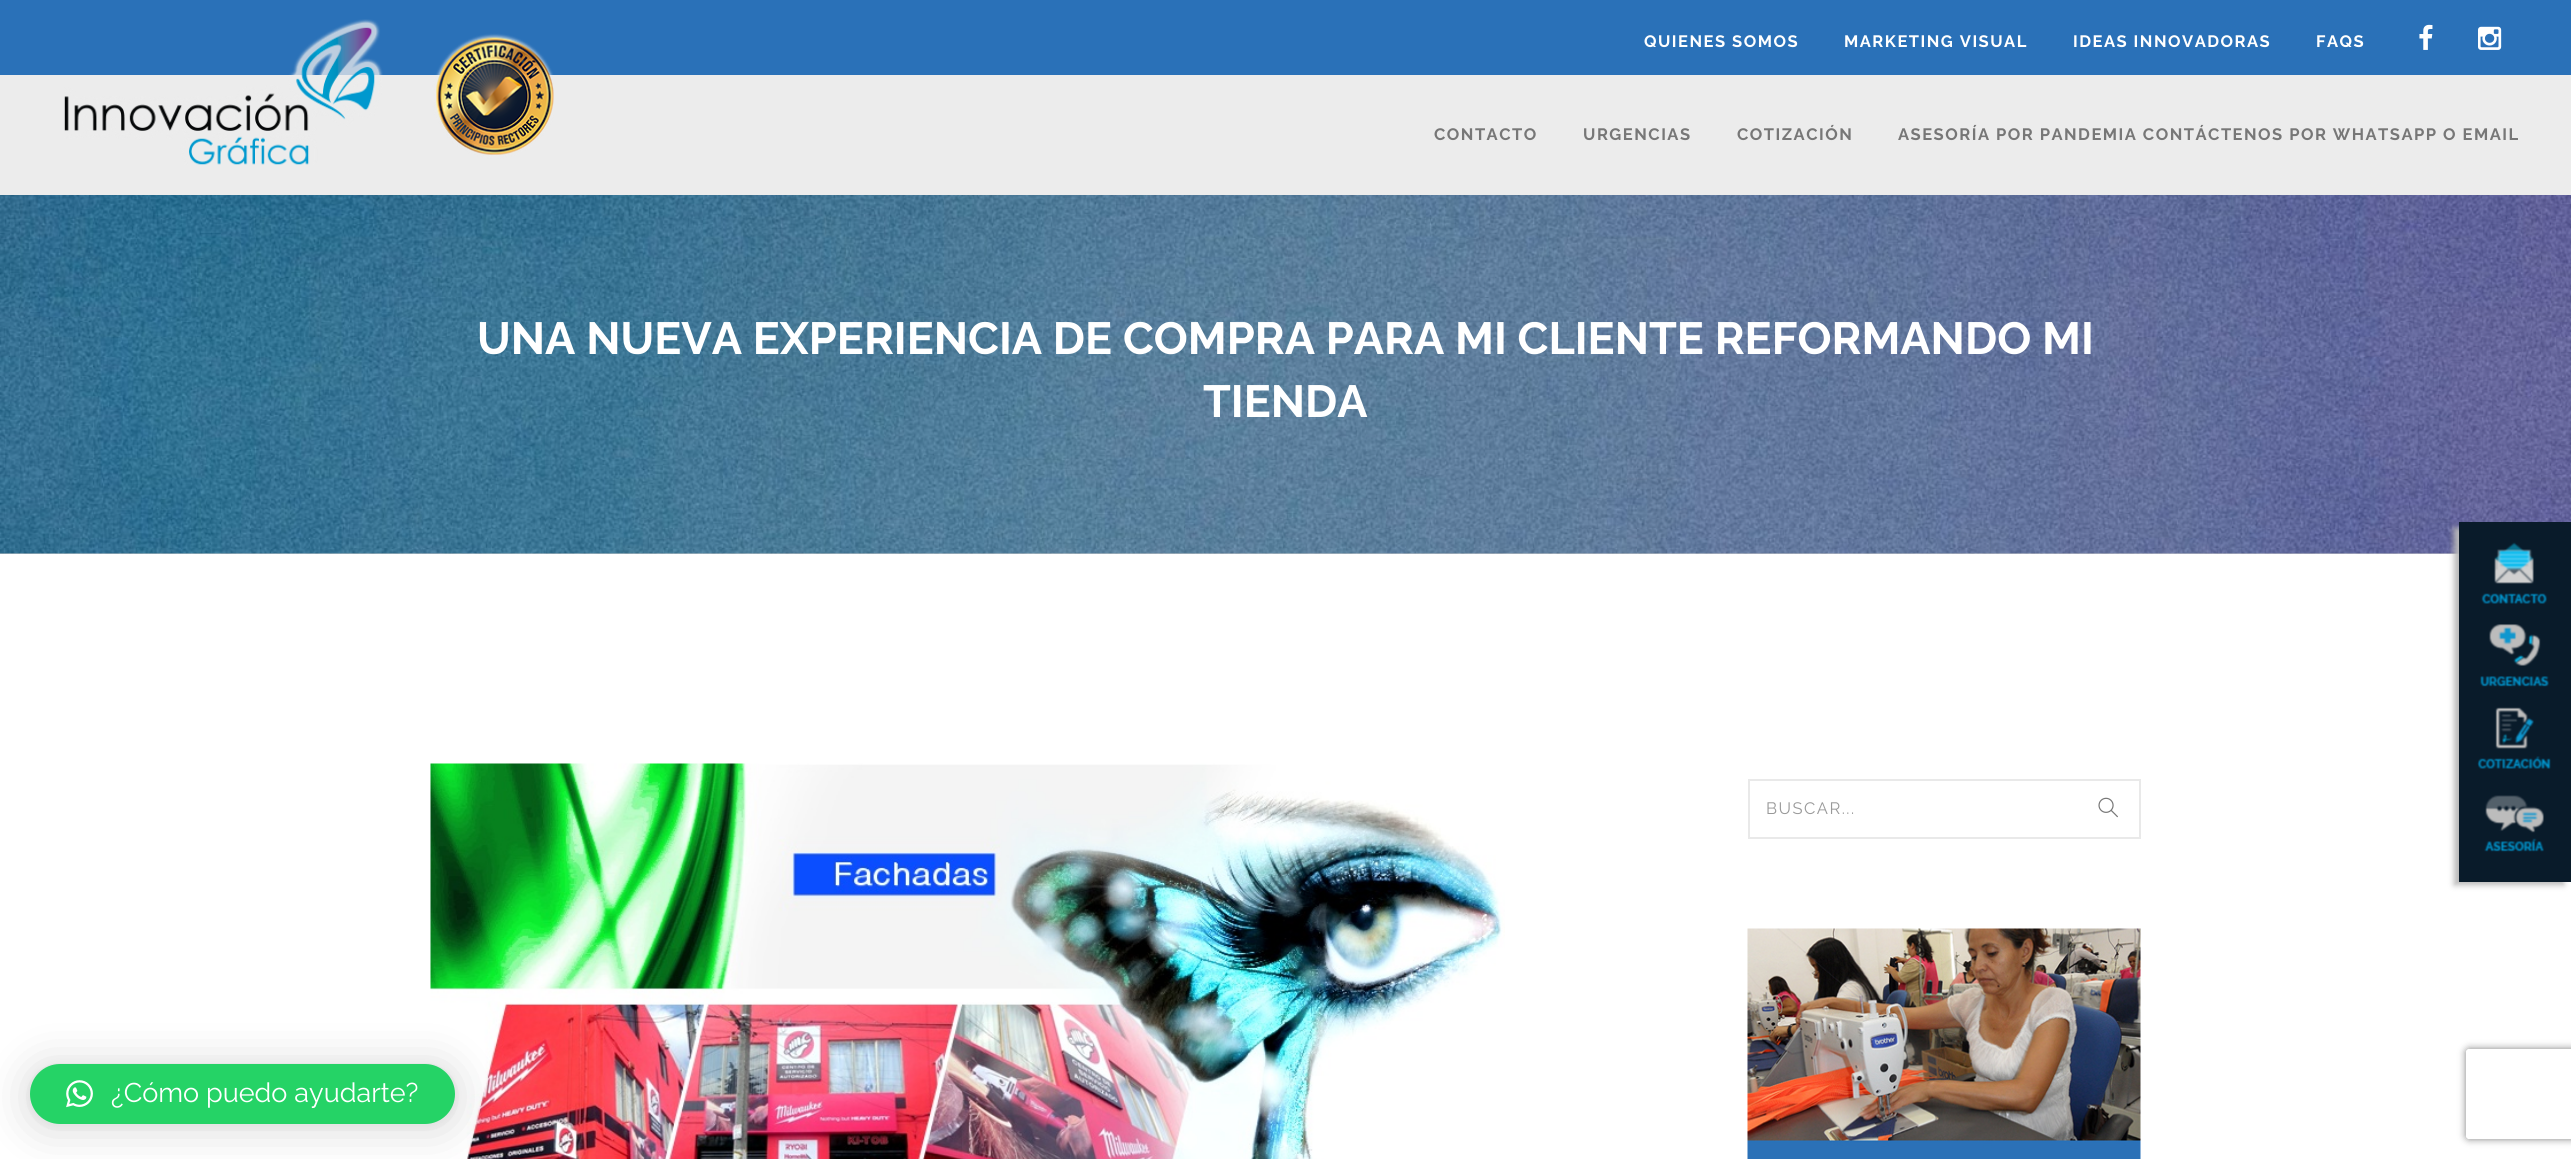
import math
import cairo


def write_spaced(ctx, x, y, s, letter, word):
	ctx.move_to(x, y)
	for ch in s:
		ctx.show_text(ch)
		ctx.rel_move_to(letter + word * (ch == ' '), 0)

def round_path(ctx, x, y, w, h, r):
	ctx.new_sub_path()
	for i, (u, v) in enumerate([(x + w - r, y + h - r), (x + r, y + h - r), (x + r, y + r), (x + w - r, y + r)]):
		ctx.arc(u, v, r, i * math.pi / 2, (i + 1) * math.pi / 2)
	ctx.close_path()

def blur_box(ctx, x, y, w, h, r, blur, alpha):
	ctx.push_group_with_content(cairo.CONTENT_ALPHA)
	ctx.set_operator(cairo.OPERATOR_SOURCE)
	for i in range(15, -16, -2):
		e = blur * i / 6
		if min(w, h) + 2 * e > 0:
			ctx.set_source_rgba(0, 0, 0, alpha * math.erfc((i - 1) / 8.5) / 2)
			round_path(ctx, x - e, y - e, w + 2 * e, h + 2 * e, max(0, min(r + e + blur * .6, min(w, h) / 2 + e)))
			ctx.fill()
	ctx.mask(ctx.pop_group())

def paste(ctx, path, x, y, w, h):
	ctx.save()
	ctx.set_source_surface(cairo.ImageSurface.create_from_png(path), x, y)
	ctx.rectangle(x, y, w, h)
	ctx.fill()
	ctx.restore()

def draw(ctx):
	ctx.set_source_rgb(1, 1, 1)
	ctx.paint()
	ctx.set_source_rgb(0.812, 0.812, 0.812)
	ctx.rectangle(0, 553, 2459, 1)
	ctx.fill()
	ctx.set_source_rgb(0.165, 0.443, 0.722)
	ctx.rectangle(0, 0, 2571, 75)
	ctx.fill()
	ctx.select_font_face('Raleway', cairo.FONT_SLANT_NORMAL, cairo.FONT_WEIGHT_BOLD)
	ctx.set_font_size(16.5)
	ctx.set_source_rgb(1, 1, 1)
	for x, y, s in [
		(1644, 47, 'QUIENES SOMOS'),
		(1844, 47, 'MARKETING VISUAL'),
		(2073, 47, 'IDEAS INNOVADORAS'),
		(2316, 47, 'FAQS'),
	]:
		write_spaced(ctx, x, y, s, 1.5, 0)
	paste(ctx, 'media/1.png', 2419, 24, 14, 26)
	paste(ctx, 'media/2.png', 2478, 26, 24, 24)
	ctx.set_source_rgb(0.925, 0.925, 0.925)
	ctx.rectangle(0, 75, 2571, 120)
	ctx.fill()
	paste(ctx, 'media/3.png', 64, 19, 490, 146)
	ctx.set_source_rgb(0.467, 0.467, 0.467)
	for x, y, s in [
		(1434, 140, 'CONTACTO'),
		(1583, 140, 'URGENCIAS'),
		(1737, 140, 'COTIZACIÓN'),
		(1898, 140, 'ASESORÍA POR PANDEMIA CONTÁCTENOS POR WHATSAPP O EMAIL'),
	]:
		write_spaced(ctx, x, y, s, 1.5, 0)
	paste(ctx, 'media/4.png', 0, 195, 2571, 359)
	ctx.set_font_size(45)
	ctx.set_source_rgb(1, 1, 1)
	ctx.move_to(477, 354)
	ctx.show_text('UNA NUEVA EXPERIENCIA DE COMPRA PARA MI CLIENTE REFORMANDO MI')
	ctx.move_to(1203, 417)
	ctx.show_text('TIENDA')
	paste(ctx, 'media/5.png', 430, 763, 1075, 396)
	ctx.rectangle(1749, 780, 391, 58)
	ctx.set_source_rgb(0.914, 0.914, 0.914)
	ctx.stroke()
	ctx.select_font_face('Raleway')
	ctx.set_font_size(16.5)
	ctx.set_source_rgb(0.6, 0.6, 0.6)
	write_spaced(ctx, 1766, 814, 'BUSCAR...', 1.5, 0)
	paste(ctx, 'media/6.png', 2098, 797, 20, 21)
	paste(ctx, 'media/7.png', 1747, 928, 394, 231)
	ctx.set_source_rgb(0.722, 0.722, 0.722)
	blur_box(ctx, 2454, 528, 110, 357, 0, 3, 1)
	ctx.set_source_rgb(0.039, 0.106, 0.165)
	ctx.rectangle(2459, 522, 112, 360)
	ctx.fill()
	paste(ctx, 'media/8.png', 2481, 542, 66, 62)
	paste(ctx, 'media/9.png', 2480, 624, 69, 63)
	paste(ctx, 'media/10.png', 2477, 707, 74, 62)
	paste(ctx, 'media/11.png', 2484, 795, 60, 57)
	ctx.set_source_rgb(0, 0, 0)
	blur_box(ctx, 30, 1067, 425, 60, 30, 24, 0.16)
	blur_box(ctx, 30, 1065, 425, 60, 30, 4.5, 0.06)
	ctx.set_source_rgb(0.145, 0.827, 0.4)
	round_path(ctx, 30, 1064, 425, 60, 30)
	ctx.fill()
	paste(ctx, 'media/12.png', 66, 1080, 27, 28)
	ctx.set_font_size(27)
	ctx.set_source_rgb(1, 1, 1)
	ctx.move_to(111, 1102)
	ctx.show_text('¿Cómo puedo ayudarte?')
	ctx.save()
	ctx.set_fill_rule(cairo.FILL_RULE_EVEN_ODD)
	ctx.new_path()
	ctx.move_to(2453, 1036)
	ctx.line_to(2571, 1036)
	ctx.line_to(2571, 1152)
	ctx.line_to(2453, 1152)
	ctx.close_path()
	ctx.move_to(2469, 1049)
	ctx.line_to(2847, 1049)
	ctx.curve_to(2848.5, 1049, 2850, 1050.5, 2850, 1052)
	ctx.line_to(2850, 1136)
	ctx.curve_to(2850, 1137.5, 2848.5, 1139, 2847, 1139)
	ctx.line_to(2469, 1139)
	ctx.curve_to(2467.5, 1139, 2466, 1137.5, 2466, 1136)
	ctx.line_to(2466, 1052)
	ctx.curve_to(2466, 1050.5, 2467.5, 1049, 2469, 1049)
	ctx.close_path()
	ctx.clip()
	ctx.set_source_rgb(0.502, 0.502, 0.502)
	blur_box(ctx, 2466, 1049, 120, 90, 3, 4, 1)
	ctx.restore()


surface = cairo.ImageSurface(cairo.FORMAT_RGB24, 2571, 1159)
ctx = cairo.Context(surface)
options = cairo.FontOptions()
options.set_hint_metrics(cairo.HINT_METRICS_OFF)
options.set_hint_style(cairo.HINT_STYLE_NONE)
ctx.set_font_options(options)
ctx.set_miter_limit(4)
draw(ctx)
surface.write_to_png('image.png')
